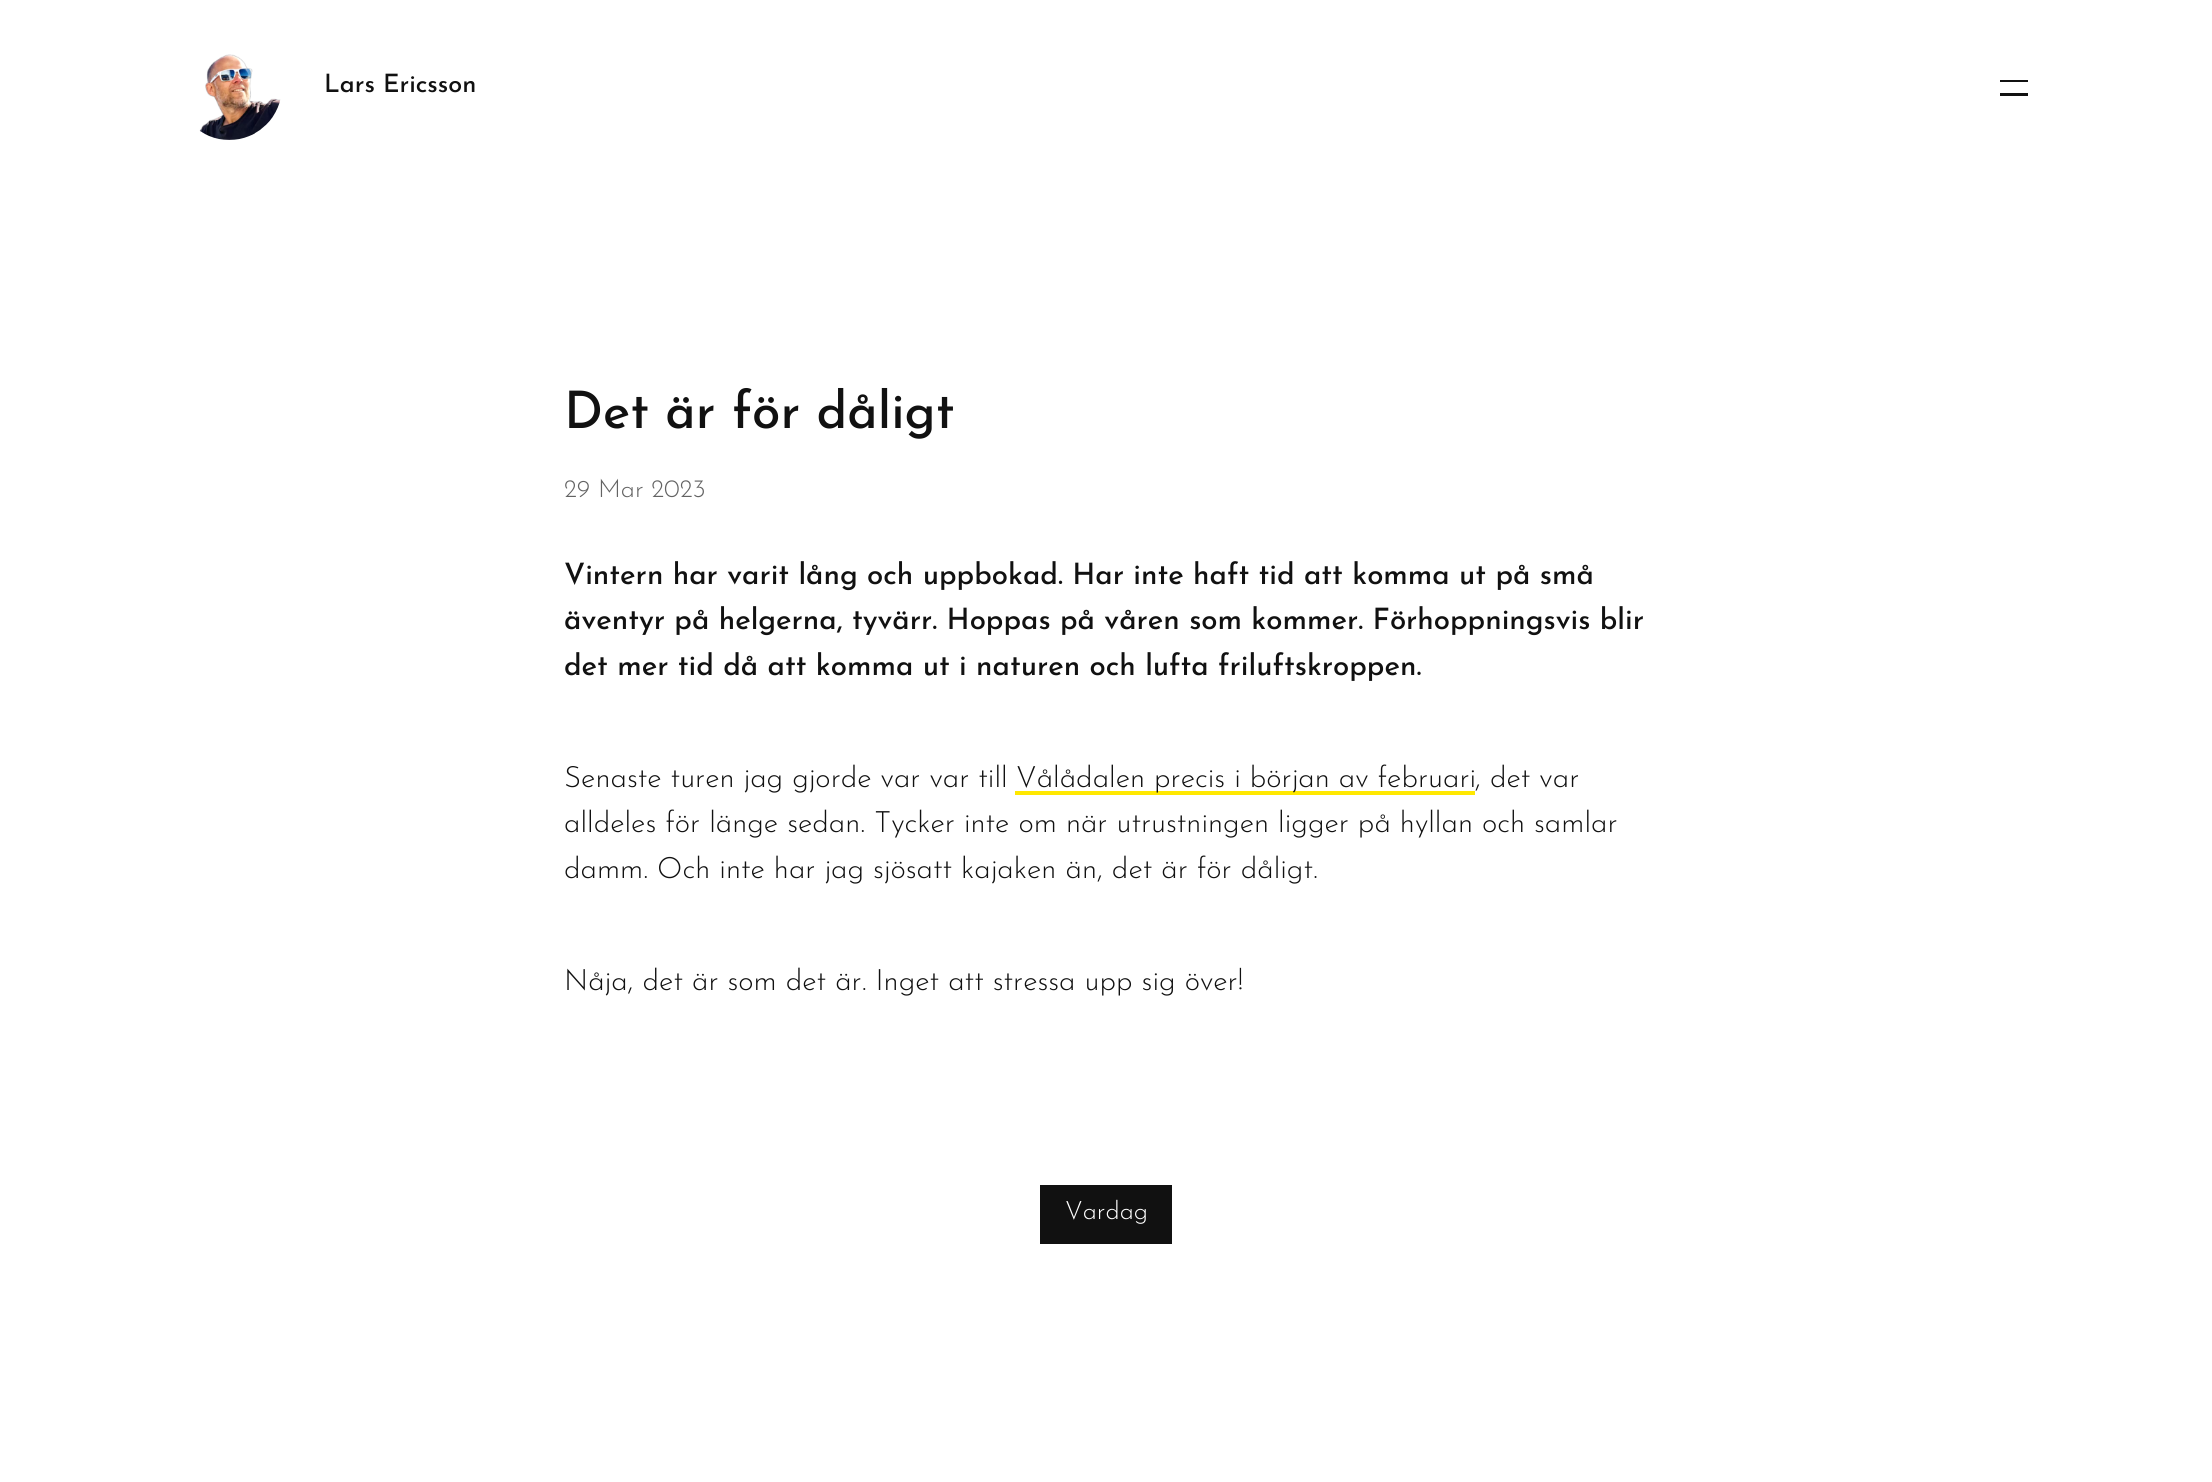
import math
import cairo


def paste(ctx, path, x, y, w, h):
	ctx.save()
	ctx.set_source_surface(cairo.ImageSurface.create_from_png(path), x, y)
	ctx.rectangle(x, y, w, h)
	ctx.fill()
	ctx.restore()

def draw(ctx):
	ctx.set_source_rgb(1, 1, 1)
	ctx.paint()
	paste(ctx, 'media/1.png', 199, 54, 82, 86)
	ctx.select_font_face('Josefin Sans Medium')
	ctx.set_font_size(25.25)
	ctx.set_source_rgb(0.067, 0.067, 0.067)
	ctx.move_to(324, 92)
	ctx.show_text('Lars Ericsson')
	ctx.rectangle(2000, 80, 28, 2)
	ctx.fill()
	ctx.rectangle(2000, 93, 28, 3)
	ctx.fill()
	ctx.set_font_size(51.5)
	ctx.move_to(564, 428)
	ctx.show_text('Det är för dåligt')
	ctx.select_font_face('Josefin Sans Light')
	ctx.set_font_size(25.25)
	ctx.set_source_rgb(0.388, 0.388, 0.388)
	ctx.move_to(564, 497)
	ctx.show_text('29 Mar 2023')
	ctx.select_font_face('Josefin Sans Medium')
	ctx.set_font_size(29.4)
	ctx.set_source_rgb(0.067, 0.067, 0.067)
	for x, y, s in [
		(564, 584, 'Vintern har varit lång och uppbokad. Har inte haft tid att komma ut på små'),
		(564, 629, 'äventyr på helgerna, tyvärr. Hoppas på våren som kommer. Förhoppningsvis blir'),
		(564, 675, 'det mer tid då att komma ut i naturen och lufta friluftskroppen.'),
	]:
		ctx.move_to(x, y)
		ctx.show_text(s)
	ctx.select_font_face('Josefin Sans Light')
	ctx.move_to(564, 787)
	ctx.show_text('Senaste turen jag gjorde var var till')
	ctx.set_source_rgb(1, 0.91, 0)
	ctx.rectangle(1015, 791, 460, 4)
	ctx.fill()
	ctx.set_source_rgb(0.067, 0.067, 0.067)
	for x, y, s in [
		(1016, 787, 'Vålådalen precis i början av februari'),
		(1475, 787, ', det var'),
		(564, 832, 'alldeles för länge sedan. Tycker inte om när utrustningen ligger på hyllan och samlar'),
		(564, 878, 'damm. Och inte har jag sjösatt kajaken än, det är för dåligt.'),
		(564, 990, 'Nåja, det är som det är. Inget att stressa upp sig över!'),
	]:
		ctx.move_to(x, y)
		ctx.show_text(s)
	ctx.rectangle(1040, 1185, 132, 59)
	ctx.fill()
	ctx.set_font_size(25.25)
	ctx.set_source_rgb(1, 1, 1)
	ctx.move_to(1065, 1219)
	ctx.show_text('Vardag')


surface = cairo.ImageSurface(cairo.FORMAT_RGB24, 2212, 1482)
ctx = cairo.Context(surface)
options = cairo.FontOptions()
options.set_hint_metrics(cairo.HINT_METRICS_OFF)
options.set_hint_style(cairo.HINT_STYLE_NONE)
ctx.set_font_options(options)
ctx.set_miter_limit(4)
draw(ctx)
surface.write_to_png('image.png')
